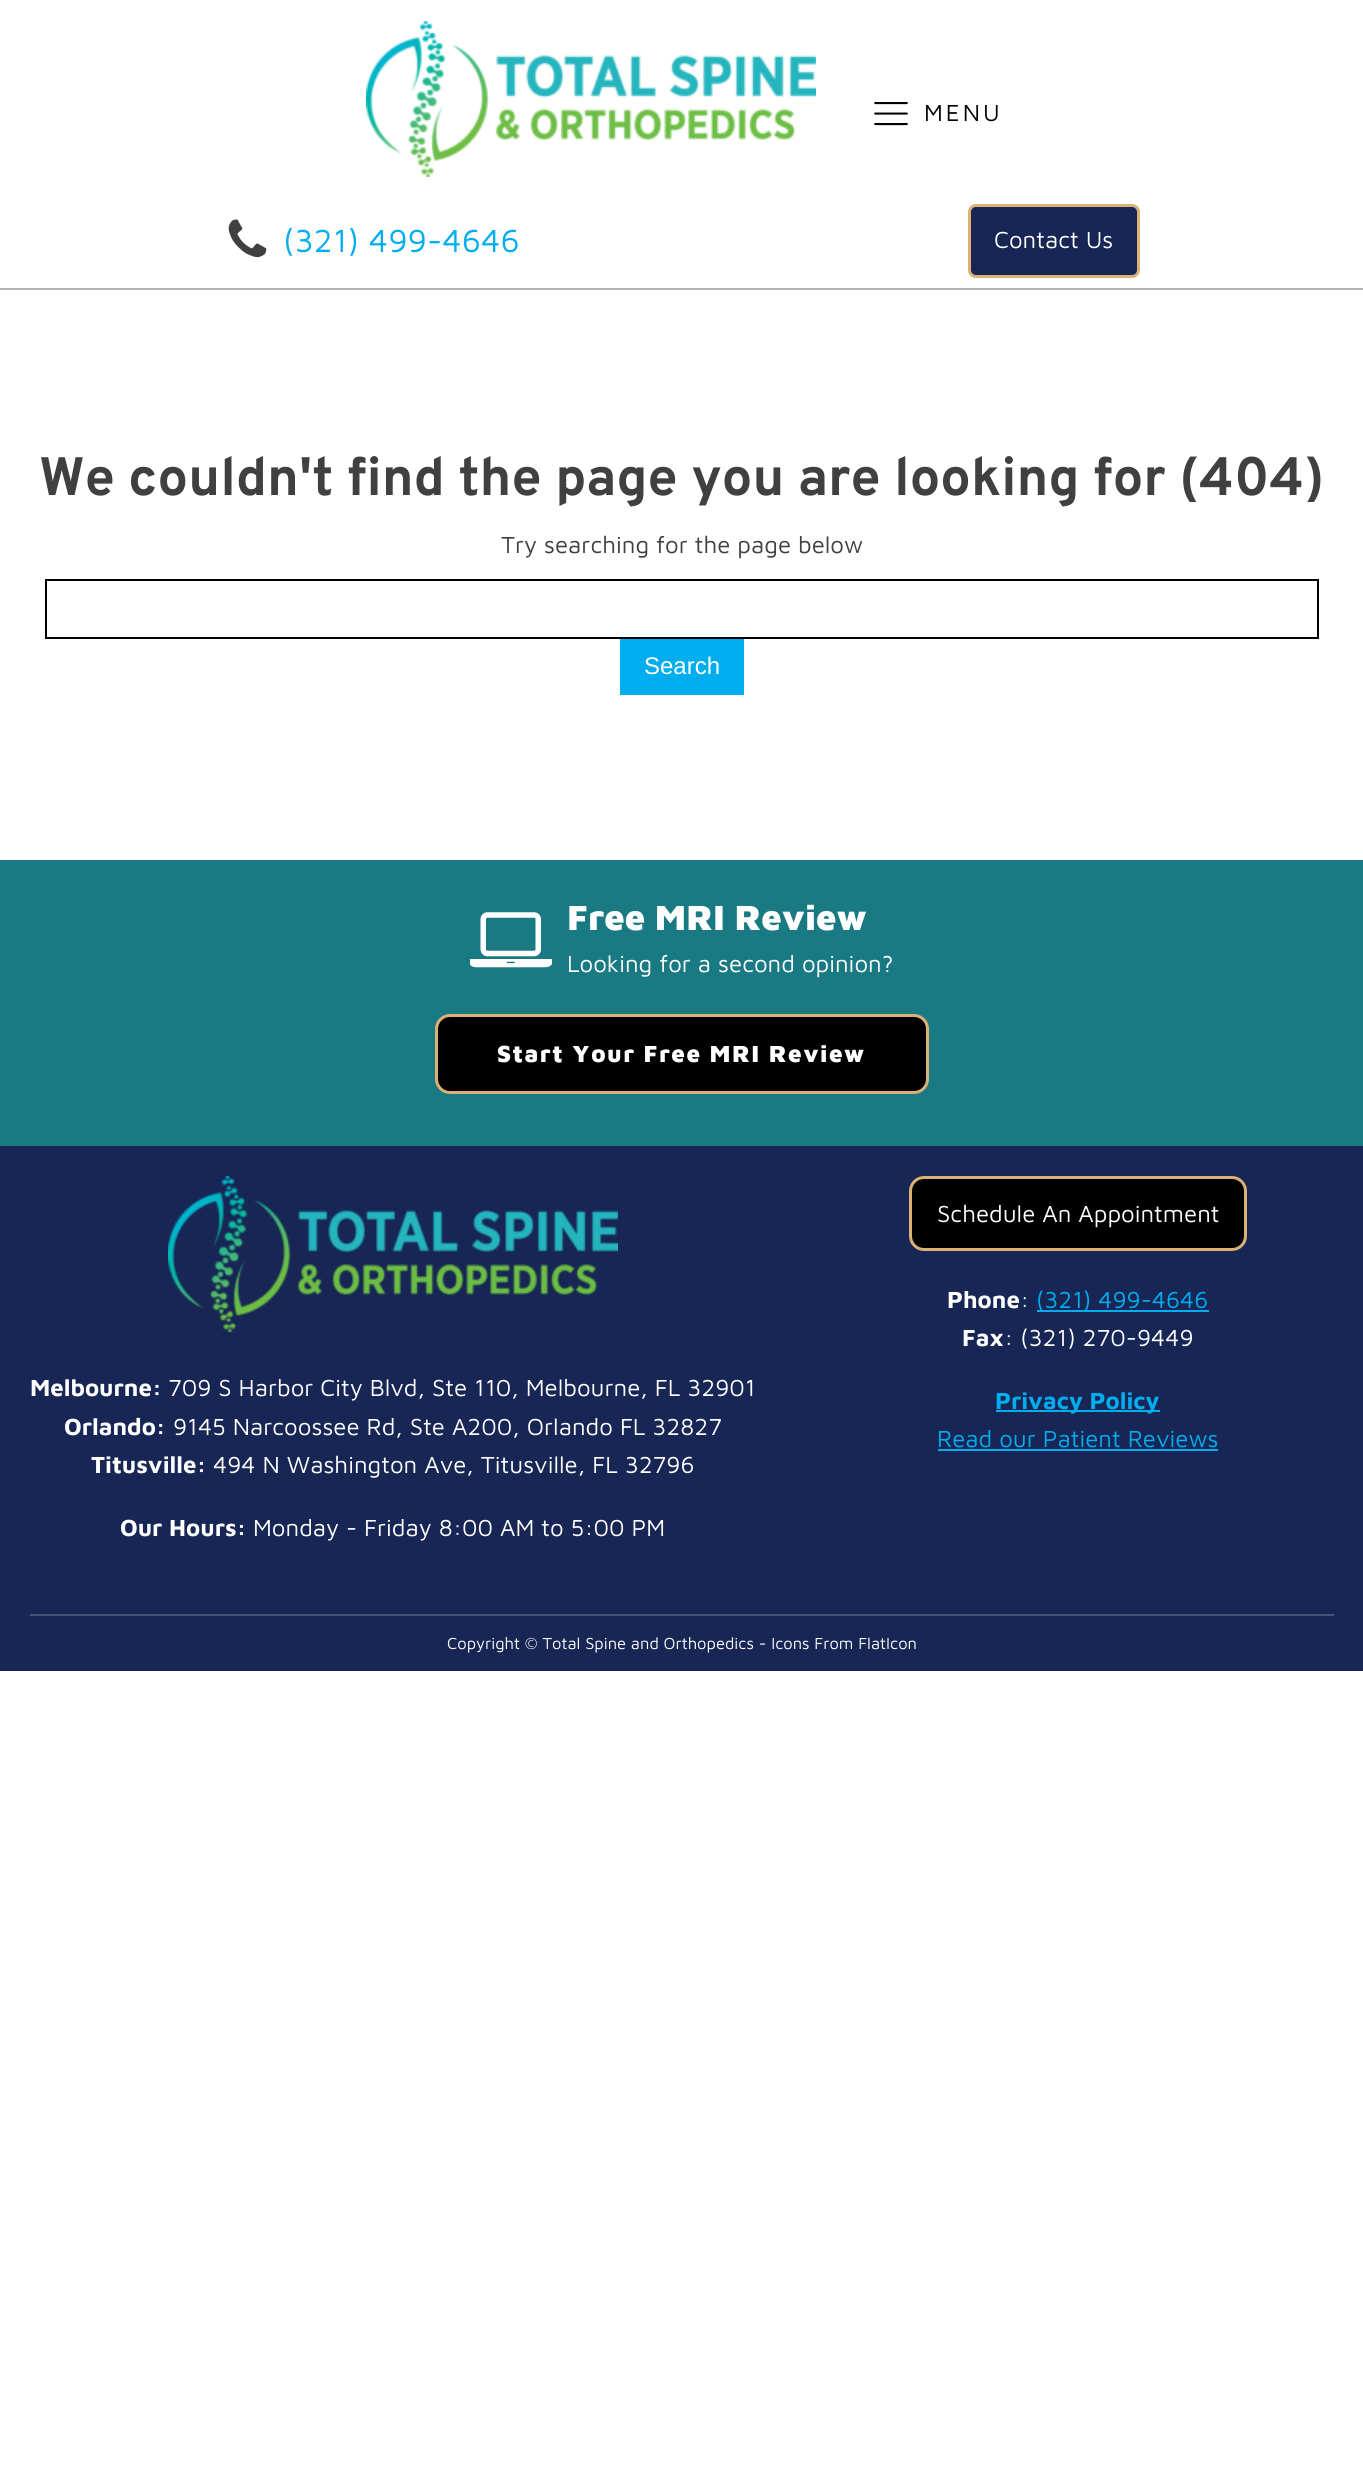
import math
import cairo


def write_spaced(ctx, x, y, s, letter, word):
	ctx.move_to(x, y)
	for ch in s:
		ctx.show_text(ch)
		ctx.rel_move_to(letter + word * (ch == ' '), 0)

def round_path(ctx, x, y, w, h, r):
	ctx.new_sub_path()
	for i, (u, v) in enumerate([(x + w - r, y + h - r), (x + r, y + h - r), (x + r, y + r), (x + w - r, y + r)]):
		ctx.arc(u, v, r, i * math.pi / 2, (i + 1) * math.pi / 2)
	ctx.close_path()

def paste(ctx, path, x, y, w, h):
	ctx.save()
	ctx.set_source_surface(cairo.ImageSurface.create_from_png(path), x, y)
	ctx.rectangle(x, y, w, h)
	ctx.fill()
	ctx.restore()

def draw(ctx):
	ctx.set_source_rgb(1, 1, 1)
	ctx.paint()
	ctx.set_source_rgb(0.702, 0.702, 0.702)
	ctx.rectangle(0, 288, 1363, 2)
	ctx.fill()
	paste(ctx, 'media/1.png', 366, 21, 450, 156)
	paste(ctx, 'media/2.png', 874, 102, 34, 24)
	ctx.select_font_face('Maven Pro')
	ctx.set_font_size(24)
	ctx.set_source_rgb(0, 0, 0)
	write_spaced(ctx, 924, 121, 'MENU', 3, 0)
	paste(ctx, 'media/3.png', 228, 219, 39, 39)
	ctx.set_font_size(33)
	ctx.set_source_rgb(0, 0.678, 0.937)
	ctx.move_to(283, 252)
	ctx.show_text('(321) 499-4646')
	ctx.set_source_rgb(0.09, 0.149, 0.329)
	round_path(ctx, 969.5, 205.5, 169, 71, 6.5)
	ctx.fill_preserve()
	ctx.set_source_rgb(0.859, 0.694, 0.459)
	ctx.set_line_width(3)
	ctx.stroke()
	ctx.set_font_size(24)
	ctx.set_source_rgb(1, 1, 1)
	ctx.move_to(994, 248)
	ctx.show_text('Contact Us')
	ctx.select_font_face('Overpass', cairo.FONT_SLANT_NORMAL, cairo.FONT_WEIGHT_BOLD)
	ctx.set_font_size(54)
	ctx.set_source_rgb(0.251, 0.251, 0.251)
	ctx.move_to(39, 495)
	ctx.show_text('We couldn\'t find the page you are looking for (404)')
	ctx.select_font_face('Maven Pro')
	ctx.set_font_size(24)
	ctx.move_to(501, 553)
	ctx.show_text('Try searching for the page below')
	ctx.rectangle(46, 580, 1272, 58)
	ctx.set_source_rgb(0, 0, 0)
	ctx.set_line_width(2)
	ctx.stroke()
	ctx.set_source_rgb(0, 0.678, 0.937)
	ctx.rectangle(620, 639, 124, 56)
	ctx.fill()
	ctx.select_font_face('Liberation Sans')
	ctx.set_source_rgb(1, 1, 1)
	ctx.move_to(644, 674)
	ctx.show_text('Search')
	ctx.set_source_rgb(0.098, 0.478, 0.518)
	ctx.rectangle(0, 860, 1363, 286)
	ctx.fill()
	paste(ctx, 'media/4.png', 470, 912, 82, 56)
	ctx.select_font_face('Maven Pro Black')
	ctx.set_font_size(36)
	ctx.set_source_rgb(1, 1, 1)
	ctx.move_to(567, 930)
	ctx.show_text('Free MRI Review')
	ctx.select_font_face('Maven Pro')
	ctx.set_font_size(24)
	ctx.move_to(567, 972)
	ctx.show_text('Looking for a second opinion?')
	ctx.set_source_rgb(0, 0, 0)
	round_path(ctx, 436.5, 1015.5, 491, 77, 13.5)
	ctx.fill_preserve()
	ctx.set_source_rgb(0.859, 0.694, 0.459)
	ctx.set_line_width(3)
	ctx.stroke()
	ctx.select_font_face('Maven Pro Black')
	ctx.set_source_rgb(1, 1, 1)
	write_spaced(ctx, 497, 1062, 'Start Your Free MRI Review', 1.5, 0)
	ctx.set_source_rgb(0.09, 0.149, 0.329)
	ctx.rectangle(0, 1146, 1363, 525)
	ctx.fill()
	paste(ctx, 'media/5.png', 168, 1176, 450, 156)
	ctx.select_font_face('Maven Pro', cairo.FONT_SLANT_NORMAL, cairo.FONT_WEIGHT_BOLD)
	ctx.set_source_rgb(1, 1, 1)
	ctx.move_to(30, 1396)
	ctx.show_text('Melbourne:')
	ctx.select_font_face('Maven Pro')
	ctx.move_to(168, 1396)
	ctx.show_text('709 S Harbor City Blvd, Ste 110, Melbourne, FL 32901')
	ctx.select_font_face('Maven Pro', cairo.FONT_SLANT_NORMAL, cairo.FONT_WEIGHT_BOLD)
	ctx.move_to(64, 1435)
	ctx.show_text('Orlando:')
	ctx.select_font_face('Maven Pro')
	ctx.move_to(173, 1435)
	ctx.show_text('9145 Narcoossee Rd, Ste A200, Orlando FL 32827')
	ctx.select_font_face('Maven Pro', cairo.FONT_SLANT_NORMAL, cairo.FONT_WEIGHT_BOLD)
	ctx.move_to(91, 1473)
	ctx.show_text('Titusville:')
	ctx.select_font_face('Maven Pro')
	ctx.move_to(213, 1473)
	ctx.show_text('494 N Washington Ave, Titusville, FL 32796')
	ctx.select_font_face('Maven Pro', cairo.FONT_SLANT_NORMAL, cairo.FONT_WEIGHT_BOLD)
	ctx.move_to(120, 1536)
	ctx.show_text('Our Hours:')
	ctx.select_font_face('Maven Pro')
	ctx.move_to(253, 1536)
	ctx.show_text('Monday - Friday 8:00 AM to 5:00 PM')
	ctx.set_source_rgb(0, 0, 0)
	round_path(ctx, 910.5, 1177.5, 335, 72, 13.5)
	ctx.fill_preserve()
	ctx.set_source_rgb(0.859, 0.694, 0.459)
	ctx.stroke()
	ctx.set_source_rgb(1, 1, 1)
	ctx.move_to(937, 1222)
	ctx.show_text('Schedule An Appointment')
	ctx.select_font_face('Maven Pro', cairo.FONT_SLANT_NORMAL, cairo.FONT_WEIGHT_BOLD)
	ctx.move_to(947, 1308)
	ctx.show_text('Phone')
	ctx.select_font_face('Maven Pro')
	ctx.move_to(1020, 1308)
	ctx.show_text(':')
	ctx.set_source_rgb(0, 0.678, 0.937)
	ctx.rectangle(1037, 1310, 172, 2)
	ctx.fill()
	ctx.move_to(1036, 1308)
	ctx.show_text('(321) 499-4646')
	ctx.select_font_face('Maven Pro', cairo.FONT_SLANT_NORMAL, cairo.FONT_WEIGHT_BOLD)
	ctx.set_source_rgb(1, 1, 1)
	ctx.move_to(962, 1346)
	ctx.show_text('Fax')
	ctx.select_font_face('Maven Pro')
	ctx.move_to(1004, 1346)
	ctx.show_text(': (321) 270-9449')
	ctx.set_source_rgb(0, 0.678, 0.937)
	ctx.rectangle(996, 1410, 164, 2)
	ctx.fill()
	ctx.select_font_face('Maven Pro', cairo.FONT_SLANT_NORMAL, cairo.FONT_WEIGHT_BOLD)
	ctx.move_to(995, 1409)
	ctx.show_text('Privacy Policy')
	ctx.select_font_face('Maven Pro')
	ctx.move_to(937, 1447)
	ctx.show_text('Read our Patient Reviews')
	ctx.rectangle(938, 1449, 280, 2)
	ctx.fill()
	ctx.set_source_rgb(0.271, 0.318, 0.463)
	ctx.rectangle(30, 1614, 1304, 2)
	ctx.fill()
	ctx.set_font_size(16.5)
	ctx.set_source_rgb(1, 1, 1)
	ctx.move_to(447, 1649)
	ctx.show_text('Copyright © Total Spine and Orthopedics - Icons From FlatIcon')


surface = cairo.ImageSurface(cairo.FORMAT_RGB24, 1363, 2489)
ctx = cairo.Context(surface)
options = cairo.FontOptions()
options.set_hint_metrics(cairo.HINT_METRICS_OFF)
options.set_hint_style(cairo.HINT_STYLE_NONE)
ctx.set_font_options(options)
ctx.set_miter_limit(4)
draw(ctx)
surface.write_to_png('image.png')
